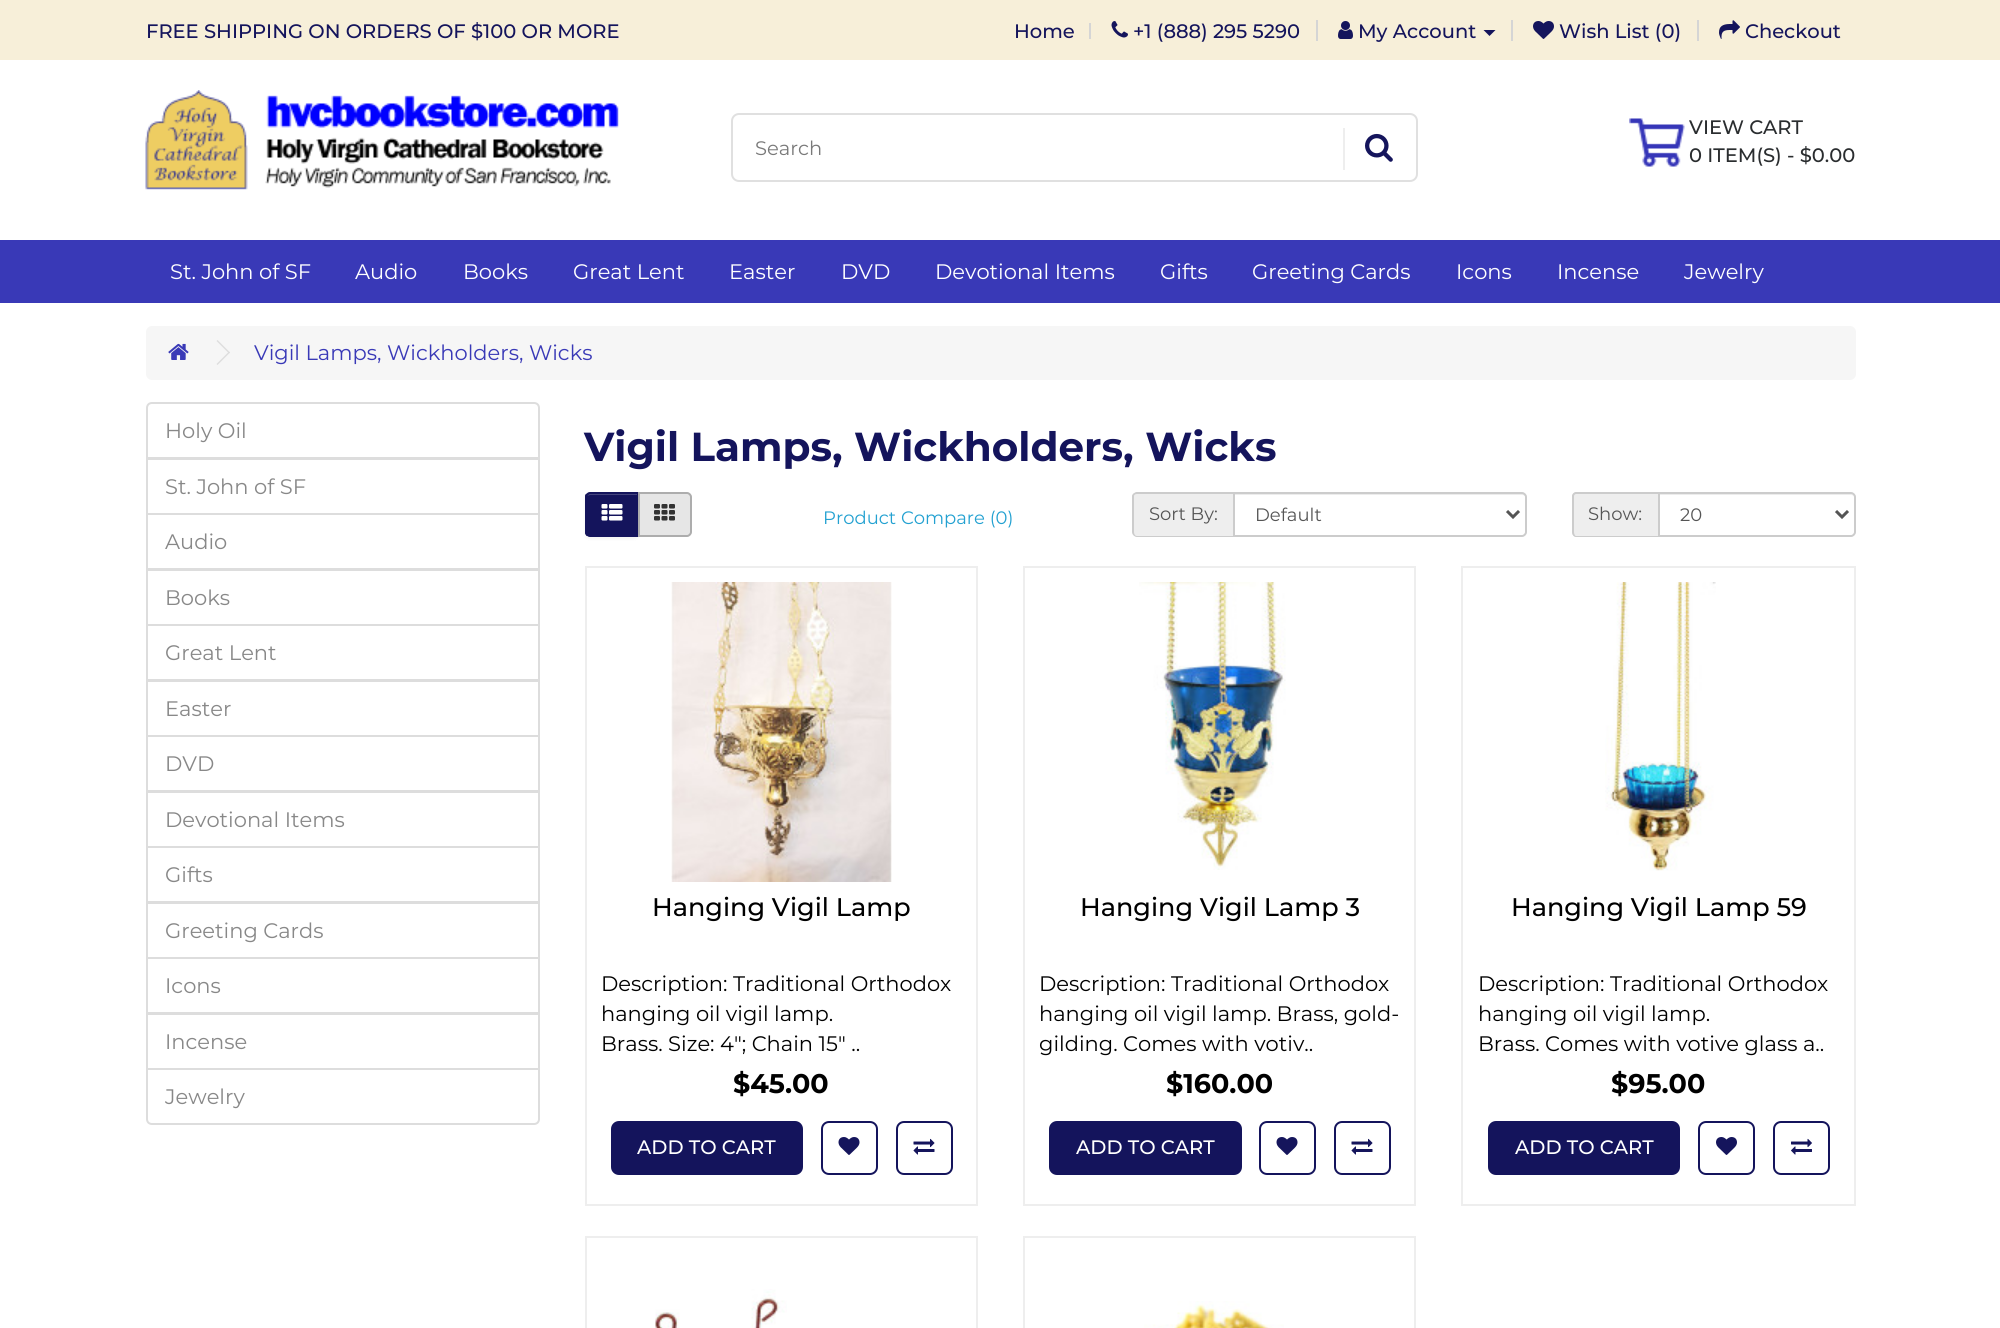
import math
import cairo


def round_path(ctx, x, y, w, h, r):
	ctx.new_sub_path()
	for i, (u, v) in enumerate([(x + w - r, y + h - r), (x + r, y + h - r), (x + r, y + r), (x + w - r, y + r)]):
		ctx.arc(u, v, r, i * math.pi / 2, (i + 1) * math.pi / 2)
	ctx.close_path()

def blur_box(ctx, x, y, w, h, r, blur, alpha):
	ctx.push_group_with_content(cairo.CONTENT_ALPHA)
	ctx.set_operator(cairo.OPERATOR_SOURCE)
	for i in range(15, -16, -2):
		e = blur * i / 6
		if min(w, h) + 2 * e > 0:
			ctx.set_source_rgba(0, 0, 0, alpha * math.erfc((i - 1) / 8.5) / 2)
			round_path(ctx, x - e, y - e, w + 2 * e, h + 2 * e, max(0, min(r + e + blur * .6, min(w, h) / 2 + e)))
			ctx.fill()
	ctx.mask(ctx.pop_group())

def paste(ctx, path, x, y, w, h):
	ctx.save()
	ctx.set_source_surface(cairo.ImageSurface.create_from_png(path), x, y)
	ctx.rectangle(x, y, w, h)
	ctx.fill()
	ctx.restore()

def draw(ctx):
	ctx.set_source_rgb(1, 1, 1)
	ctx.paint()
	ctx.set_source_rgb(0.965, 0.937, 0.851)
	ctx.rectangle(0, 0, 2000, 60)
	ctx.fill()
	ctx.select_font_face('Montserrat Medium')
	ctx.set_font_size(19.5)
	ctx.set_source_rgb(0.082, 0.082, 0.361)
	ctx.move_to(146, 38)
	ctx.show_text('FREE SHIPPING ON ORDERS OF $100 OR MORE')
	ctx.set_source_rgb(0.835, 0.835, 0.835)
	ctx.rectangle(1089, 23, 2, 16)
	ctx.fill()
	ctx.set_source_rgb(0.082, 0.082, 0.361)
	ctx.move_to(1014, 38)
	ctx.show_text('Home')
	ctx.set_source_rgb(0.835, 0.835, 0.835)
	ctx.rectangle(1316, 20, 2, 21)
	ctx.fill()
	paste(ctx, 'media/1.png', 1111, 21, 17, 17)
	ctx.set_source_rgb(0.082, 0.082, 0.361)
	ctx.move_to(1133, 38)
	ctx.show_text('+1 (888) 295 5290')
	ctx.set_source_rgb(0.835, 0.835, 0.835)
	ctx.rectangle(1511, 20, 2, 21)
	ctx.fill()
	paste(ctx, 'media/2.png', 1338, 21, 15, 18)
	ctx.set_source_rgb(0.082, 0.082, 0.361)
	ctx.move_to(1358, 38)
	ctx.show_text('My Account')
	ctx.new_path()
	ctx.move_to(1483.5, 30)
	ctx.line_to(1495.5, 30)
	ctx.line_to(1489.5, 36)
	ctx.close_path()
	ctx.fill()
	ctx.set_source_rgb(0.835, 0.835, 0.835)
	ctx.rectangle(1697, 20, 2, 21)
	ctx.fill()
	paste(ctx, 'media/3.png', 1533, 21, 21, 18)
	ctx.set_source_rgb(0.082, 0.082, 0.361)
	ctx.move_to(1559, 38)
	ctx.show_text('Wish List (0)')
	paste(ctx, 'media/4.png', 1719, 20, 21, 19)
	ctx.move_to(1745, 38)
	ctx.show_text('Checkout')
	paste(ctx, 'media/5.png', 145, 90, 474, 100)
	round_path(ctx, 732, 114, 685, 67, 7)
	ctx.set_source_rgb(0.878, 0.878, 0.878)
	ctx.stroke()
	ctx.select_font_face('Montserrat')
	ctx.set_source_rgb(0.475, 0.475, 0.475)
	ctx.move_to(755, 155)
	ctx.show_text('Search')
	ctx.set_source_rgb(0.933, 0.933, 0.933)
	ctx.rectangle(1343, 128, 2, 42)
	ctx.fill()
	paste(ctx, 'media/6.png', 1365, 133, 28, 29)
	paste(ctx, 'media/7.png', 1629, 118, 56, 49)
	ctx.select_font_face('Montserrat Medium')
	ctx.set_source_rgb(0.165, 0.176, 0.184)
	ctx.move_to(1689, 134)
	ctx.show_text('VIEW CART')
	ctx.move_to(1689, 162)
	ctx.show_text('0 ITEM(S) - $0.00')
	ctx.set_source_rgb(0.224, 0.224, 0.718)
	ctx.rectangle(0, 240, 2000, 63)
	ctx.fill()
	ctx.select_font_face('Montserrat')
	ctx.set_font_size(21)
	ctx.set_source_rgb(1, 1, 1)
	for x, y, s in [
		(170, 279, 'St. John of SF'),
		(355, 279, 'Audio'),
		(463, 279, 'Books'),
		(573, 279, 'Great Lent'),
		(729, 279, 'Easter'),
		(841, 279, 'DVD'),
		(935, 279, 'Devotional Items'),
		(1160, 279, 'Gifts'),
		(1252, 279, 'Greeting Cards'),
		(1456, 279, 'Icons'),
		(1557, 279, 'Incense'),
		(1684, 279, 'Jewelry'),
	]:
		ctx.move_to(x, y)
		ctx.show_text(s)
	ctx.set_source_rgb(0.961, 0.961, 0.961)
	round_path(ctx, 146, 326, 1710, 54, 6)
	ctx.fill()
	paste(ctx, 'media/8.png', 168, 343, 21, 17)
	ctx.set_source_rgb(0.867, 0.867, 0.867)
	ctx.new_path()
	ctx.move_to(216.5, 341)
	ctx.line_to(217.5, 340)
	ctx.line_to(230, 352.5)
	ctx.line_to(229, 353.5)
	ctx.close_path()
	ctx.fill()
	ctx.new_path()
	ctx.move_to(216.5, 364)
	ctx.line_to(229, 351.5)
	ctx.line_to(230, 352.5)
	ctx.line_to(217.5, 365)
	ctx.close_path()
	ctx.fill()
	ctx.set_source_rgb(0.224, 0.224, 0.718)
	ctx.move_to(254, 360)
	ctx.show_text('Vigil Lamps, Wickholders, Wicks')
	ctx.new_path()
	ctx.move_to(152, 403)
	ctx.line_to(534, 403)
	ctx.curve_to(537, 403, 539, 405, 539, 408)
	ctx.line_to(539, 458)
	ctx.line_to(147, 458)
	ctx.line_to(147, 408)
	ctx.curve_to(147, 405, 149, 403, 152, 403)
	ctx.close_path()
	ctx.set_source_rgb(0.867, 0.867, 0.867)
	ctx.stroke()
	ctx.set_source_rgb(0.533, 0.533, 0.533)
	ctx.move_to(165, 438)
	ctx.show_text('Holy Oil')
	ctx.rectangle(147, 459, 392, 55)
	ctx.set_source_rgb(0.867, 0.867, 0.867)
	ctx.stroke()
	ctx.set_source_rgb(0.533, 0.533, 0.533)
	ctx.move_to(165, 494)
	ctx.show_text('St. John of SF')
	ctx.rectangle(147, 514, 392, 55)
	ctx.set_source_rgb(0.867, 0.867, 0.867)
	ctx.stroke()
	ctx.set_source_rgb(0.533, 0.533, 0.533)
	ctx.move_to(165, 549)
	ctx.show_text('Audio')
	ctx.rectangle(147, 570, 392, 55)
	ctx.set_source_rgb(0.867, 0.867, 0.867)
	ctx.stroke()
	ctx.set_source_rgb(0.533, 0.533, 0.533)
	ctx.move_to(165, 605)
	ctx.show_text('Books')
	ctx.rectangle(147, 625, 392, 55)
	ctx.set_source_rgb(0.867, 0.867, 0.867)
	ctx.stroke()
	ctx.set_source_rgb(0.533, 0.533, 0.533)
	ctx.move_to(165, 660)
	ctx.show_text('Great Lent')
	ctx.rectangle(147, 681, 392, 55)
	ctx.set_source_rgb(0.867, 0.867, 0.867)
	ctx.stroke()
	ctx.set_source_rgb(0.533, 0.533, 0.533)
	ctx.move_to(165, 716)
	ctx.show_text('Easter')
	ctx.rectangle(147, 736, 392, 55)
	ctx.set_source_rgb(0.867, 0.867, 0.867)
	ctx.stroke()
	ctx.set_source_rgb(0.533, 0.533, 0.533)
	ctx.move_to(165, 771)
	ctx.show_text('DVD')
	ctx.rectangle(147, 792, 392, 55)
	ctx.set_source_rgb(0.867, 0.867, 0.867)
	ctx.stroke()
	ctx.set_source_rgb(0.533, 0.533, 0.533)
	ctx.move_to(165, 827)
	ctx.show_text('Devotional Items')
	ctx.rectangle(147, 847, 392, 55)
	ctx.set_source_rgb(0.867, 0.867, 0.867)
	ctx.stroke()
	ctx.set_source_rgb(0.533, 0.533, 0.533)
	ctx.move_to(165, 882)
	ctx.show_text('Gifts')
	ctx.rectangle(147, 903, 392, 55)
	ctx.set_source_rgb(0.867, 0.867, 0.867)
	ctx.stroke()
	ctx.set_source_rgb(0.533, 0.533, 0.533)
	ctx.move_to(165, 938)
	ctx.show_text('Greeting Cards')
	ctx.rectangle(147, 958, 392, 55)
	ctx.set_source_rgb(0.867, 0.867, 0.867)
	ctx.stroke()
	ctx.set_source_rgb(0.533, 0.533, 0.533)
	ctx.move_to(165, 993)
	ctx.show_text('Icons')
	ctx.rectangle(147, 1014, 392, 55)
	ctx.set_source_rgb(0.867, 0.867, 0.867)
	ctx.stroke()
	ctx.set_source_rgb(0.533, 0.533, 0.533)
	ctx.move_to(165, 1049)
	ctx.show_text('Incense')
	ctx.set_source_rgb(1, 1, 1)
	ctx.new_path()
	ctx.move_to(147, 1069)
	ctx.line_to(539, 1069)
	ctx.line_to(539, 1119)
	ctx.curve_to(539, 1122, 537, 1124, 534, 1124)
	ctx.line_to(152, 1124)
	ctx.curve_to(149, 1124, 147, 1122, 147, 1119)
	ctx.close_path()
	ctx.fill_preserve()
	ctx.set_source_rgb(0.867, 0.867, 0.867)
	ctx.stroke()
	ctx.set_source_rgb(0.533, 0.533, 0.533)
	ctx.move_to(165, 1104)
	ctx.show_text('Jewelry')
	ctx.select_font_face('Montserrat', cairo.FONT_SLANT_NORMAL, cairo.FONT_WEIGHT_BOLD)
	ctx.set_font_size(40.5)
	ctx.set_source_rgb(0.082, 0.082, 0.361)
	ctx.move_to(584, 461)
	ctx.show_text('Vigil Lamps, Wickholders, Wicks')
	ctx.set_source_rgb(0, 0, 0)
	blur_box(ctx, 585, 494, 54, 45, 5, 1.5, 0.05)
	ctx.save()
	ctx.new_path()
	ctx.move_to(590, 492)
	ctx.line_to(639, 492)
	ctx.line_to(639, 537)
	ctx.line_to(590, 537)
	ctx.curve_to(587, 537, 585, 535, 585, 532)
	ctx.line_to(585, 497)
	ctx.curve_to(585, 494, 587, 492, 590, 492)
	ctx.close_path()
	ctx.clip()
	ctx.set_source_rgb(0.082, 0.082, 0.361)
	ctx.rectangle(585, 494, 52, 42)
	ctx.fill()
	ctx.restore()
	ctx.set_source_rgb(0.267, 0.267, 0.49)
	ctx.new_path()
	ctx.move_to(590, 495)
	ctx.line_to(638, 495)
	ctx.line_to(638, 494)
	ctx.line_to(589, 494)
	ctx.line_to(587, 496)
	ctx.close_path()
	ctx.fill()
	ctx.new_path()
	ctx.move_to(590, 493)
	ctx.line_to(638, 493)
	ctx.line_to(638, 536)
	ctx.line_to(590, 536)
	ctx.curve_to(588, 536, 586, 534, 586, 532)
	ctx.line_to(586, 497)
	ctx.curve_to(586, 495, 588, 493, 590, 493)
	ctx.close_path()
	ctx.set_source_rgb(0.082, 0.082, 0.361)
	ctx.stroke()
	paste(ctx, 'media/9.png', 601, 504, 22, 17)
	ctx.set_source_rgb(0.902, 0.902, 0.902)
	ctx.new_path()
	ctx.move_to(639, 493)
	ctx.line_to(687, 493)
	ctx.curve_to(689, 493, 691, 495, 691, 497)
	ctx.line_to(691, 532)
	ctx.curve_to(691, 534, 689, 536, 687, 536)
	ctx.line_to(639, 536)
	ctx.close_path()
	ctx.fill_preserve()
	ctx.set_source_rgb(0.678, 0.678, 0.678)
	ctx.stroke()
	paste(ctx, 'media/10.png', 654, 504, 21, 17)
	ctx.select_font_face('Montserrat')
	ctx.set_font_size(18)
	ctx.set_source_rgb(0.137, 0.631, 0.82)
	ctx.move_to(823, 524)
	ctx.show_text('Product Compare (0)')
	ctx.set_source_rgb(0.933, 0.933, 0.933)
	ctx.new_path()
	ctx.move_to(1138, 492)
	ctx.line_to(1233, 492)
	ctx.line_to(1233, 537)
	ctx.line_to(1138, 537)
	ctx.curve_to(1135, 537, 1133, 535, 1133, 532)
	ctx.line_to(1133, 497)
	ctx.curve_to(1133, 494, 1135, 492, 1138, 492)
	ctx.close_path()
	ctx.fill()
	ctx.set_source_rgb(0.8, 0.8, 0.8)
	ctx.set_fill_rule(cairo.FILL_RULE_EVEN_ODD)
	ctx.new_path()
	ctx.move_to(1137, 492)
	ctx.line_to(1233, 492)
	ctx.line_to(1233, 537)
	ctx.line_to(1137, 537)
	ctx.curve_to(1135, 537, 1132, 535, 1132, 532)
	ctx.line_to(1132, 496)
	ctx.curve_to(1132, 494, 1135, 492, 1137, 492)
	ctx.close_path()
	ctx.move_to(1137, 494)
	ctx.line_to(1233, 494)
	ctx.line_to(1233, 536)
	ctx.line_to(1137, 536)
	ctx.curve_to(1135, 536, 1134, 534, 1134, 532)
	ctx.line_to(1134, 496)
	ctx.curve_to(1134, 495, 1135, 494, 1137, 494)
	ctx.close_path()
	ctx.fill()
	ctx.set_source_rgb(0.333, 0.333, 0.333)
	ctx.move_to(1149, 520)
	ctx.show_text('Sort By:')
	ctx.set_source_rgb(0.925, 0.925, 0.925)
	ctx.set_fill_rule(cairo.FILL_RULE_WINDING)
	ctx.new_path()
	ctx.move_to(1235, 494)
	ctx.line_to(1235, 495)
	ctx.line_to(1522, 495)
	ctx.curve_to(1524, 495, 1526, 496, 1526, 498)
	ctx.curve_to(1526, 496, 1525, 494, 1523, 494)
	ctx.close_path()
	ctx.fill()
	ctx.new_path()
	ctx.move_to(1234, 493)
	ctx.line_to(1522, 493)
	ctx.curve_to(1524, 493, 1526, 495, 1526, 497)
	ctx.line_to(1526, 532)
	ctx.curve_to(1526, 534, 1524, 536, 1522, 536)
	ctx.line_to(1234, 536)
	ctx.close_path()
	ctx.set_source_rgb(0.8, 0.8, 0.8)
	ctx.stroke()
	ctx.new_path()
	ctx.move_to(1507, 511)
	ctx.line_to(1513, 517)
	ctx.line_to(1519, 511)
	ctx.set_source_rgb(0.333, 0.333, 0.333)
	ctx.set_line_width(3)
	ctx.stroke()
	ctx.move_to(1255, 521)
	ctx.show_text('Default')
	ctx.set_source_rgb(0.933, 0.933, 0.933)
	ctx.new_path()
	ctx.move_to(1577, 492)
	ctx.line_to(1658, 492)
	ctx.line_to(1658, 537)
	ctx.line_to(1577, 537)
	ctx.curve_to(1574, 537, 1572, 535, 1572, 532)
	ctx.line_to(1572, 497)
	ctx.curve_to(1572, 494, 1574, 492, 1577, 492)
	ctx.close_path()
	ctx.fill()
	ctx.set_source_rgb(0.8, 0.8, 0.8)
	ctx.set_fill_rule(cairo.FILL_RULE_EVEN_ODD)
	ctx.new_path()
	ctx.move_to(1576, 492)
	ctx.line_to(1658, 492)
	ctx.line_to(1658, 537)
	ctx.line_to(1576, 537)
	ctx.curve_to(1574, 537, 1572, 535, 1572, 532)
	ctx.line_to(1572, 496)
	ctx.curve_to(1572, 494, 1574, 492, 1576, 492)
	ctx.close_path()
	ctx.move_to(1576, 494)
	ctx.line_to(1658, 494)
	ctx.line_to(1658, 536)
	ctx.line_to(1576, 536)
	ctx.curve_to(1575, 536, 1574, 534, 1574, 532)
	ctx.line_to(1574, 496)
	ctx.curve_to(1574, 495, 1575, 494, 1576, 494)
	ctx.close_path()
	ctx.fill()
	ctx.set_source_rgb(0.333, 0.333, 0.333)
	ctx.move_to(1588, 520)
	ctx.show_text('Show:')
	ctx.set_source_rgb(0.925, 0.925, 0.925)
	ctx.set_fill_rule(cairo.FILL_RULE_WINDING)
	ctx.new_path()
	ctx.move_to(1659, 495)
	ctx.line_to(1851, 495)
	ctx.curve_to(1853, 495, 1854, 496, 1854, 498)
	ctx.curve_to(1854, 496, 1853, 494, 1851, 494)
	ctx.line_to(1659, 494)
	ctx.close_path()
	ctx.fill()
	ctx.new_path()
	ctx.move_to(1659, 493)
	ctx.line_to(1851, 493)
	ctx.curve_to(1853, 493, 1855, 495, 1855, 497)
	ctx.line_to(1855, 532)
	ctx.curve_to(1855, 534, 1853, 536, 1851, 536)
	ctx.line_to(1659, 536)
	ctx.close_path()
	ctx.set_source_rgb(0.8, 0.8, 0.8)
	ctx.set_line_width(2)
	ctx.stroke()
	ctx.new_path()
	ctx.move_to(1836, 511)
	ctx.line_to(1842, 517)
	ctx.line_to(1848, 511)
	ctx.set_source_rgb(0.333, 0.333, 0.333)
	ctx.set_line_width(3)
	ctx.stroke()
	ctx.move_to(1680, 521)
	ctx.show_text('20')
	ctx.rectangle(586, 567, 391, 638)
	ctx.set_source_rgb(0.933, 0.933, 0.933)
	ctx.set_line_width(2)
	ctx.stroke()
	paste(ctx, 'media/11.png', 671, 582, 221, 300)
	ctx.select_font_face('Montserrat Medium')
	ctx.set_font_size(25.5)
	ctx.set_source_rgb(0, 0, 0)
	ctx.move_to(652, 916)
	ctx.show_text('Hanging Vigil Lamp')
	ctx.select_font_face('Montserrat')
	ctx.set_font_size(21)
	for x, y, s in [
		(601, 991, 'Description: Traditional Orthodox'),
		(601, 1021, 'hanging oil vigil lamp.'),
		(601, 1051, 'Brass. Size: 4"; Chain 15" ..'),
	]:
		ctx.move_to(x, y)
		ctx.show_text(s)
	ctx.select_font_face('Montserrat', cairo.FONT_SLANT_NORMAL, cairo.FONT_WEIGHT_BOLD)
	ctx.set_font_size(27)
	ctx.move_to(733, 1093)
	ctx.show_text('$45.00')
	ctx.set_source_rgb(0.082, 0.082, 0.361)
	round_path(ctx, 611, 1121, 192, 54, 8)
	ctx.fill()
	ctx.select_font_face('Montserrat Medium')
	ctx.set_font_size(19.5)
	ctx.set_source_rgb(1, 1, 1)
	ctx.move_to(637, 1154)
	ctx.show_text('ADD TO CART')
	round_path(ctx, 822, 1122, 55, 52, 7)
	ctx.set_source_rgb(0.082, 0.082, 0.361)
	ctx.stroke()
	paste(ctx, 'media/12.png', 838, 1137, 22, 18)
	round_path(ctx, 897, 1122, 55, 52, 7)
	ctx.stroke()
	paste(ctx, 'media/13.png', 913, 1138, 22, 17)
	ctx.rectangle(1024, 567, 391, 638)
	ctx.set_source_rgb(0.933, 0.933, 0.933)
	ctx.stroke()
	paste(ctx, 'media/14.png', 1139, 582, 147, 288)
	ctx.set_font_size(25.5)
	ctx.set_source_rgb(0, 0, 0)
	ctx.move_to(1080, 916)
	ctx.show_text('Hanging Vigil Lamp 3')
	ctx.select_font_face('Montserrat')
	ctx.set_font_size(21)
	for x, y, s in [
		(1039, 991, 'Description: Traditional Orthodox'),
		(1039, 1021, 'hanging oil vigil lamp. Brass, gold-'),
		(1039, 1051, 'gilding. Comes with votiv..'),
	]:
		ctx.move_to(x, y)
		ctx.show_text(s)
	ctx.select_font_face('Montserrat', cairo.FONT_SLANT_NORMAL, cairo.FONT_WEIGHT_BOLD)
	ctx.set_font_size(27)
	ctx.move_to(1166, 1093)
	ctx.show_text('$160.00')
	ctx.set_source_rgb(0.082, 0.082, 0.361)
	round_path(ctx, 1049, 1121, 193, 54, 8)
	ctx.fill()
	ctx.select_font_face('Montserrat Medium')
	ctx.set_font_size(19.5)
	ctx.set_source_rgb(1, 1, 1)
	ctx.move_to(1076, 1154)
	ctx.show_text('ADD TO CART')
	round_path(ctx, 1260, 1122, 55, 52, 7)
	ctx.set_source_rgb(0.082, 0.082, 0.361)
	ctx.stroke()
	paste(ctx, 'media/12.png', 1276, 1137, 22, 18)
	round_path(ctx, 1335, 1122, 55, 52, 7)
	ctx.stroke()
	paste(ctx, 'media/13.png', 1351, 1138, 22, 17)
	ctx.rectangle(1462, 567, 393, 638)
	ctx.set_source_rgb(0.933, 0.933, 0.933)
	ctx.stroke()
	paste(ctx, 'media/15.png', 1605, 582, 111, 289)
	ctx.set_font_size(25.5)
	ctx.set_source_rgb(0, 0, 0)
	ctx.move_to(1511, 916)
	ctx.show_text('Hanging Vigil Lamp 59')
	ctx.select_font_face('Montserrat')
	ctx.set_font_size(21)
	for x, y, s in [
		(1478, 991, 'Description: Traditional Orthodox'),
		(1478, 1021, 'hanging oil vigil lamp.'),
		(1478, 1051, 'Brass. Comes with votive glass a..'),
	]:
		ctx.move_to(x, y)
		ctx.show_text(s)
	ctx.select_font_face('Montserrat', cairo.FONT_SLANT_NORMAL, cairo.FONT_WEIGHT_BOLD)
	ctx.set_font_size(27)
	ctx.move_to(1611, 1093)
	ctx.show_text('$95.00')
	ctx.set_source_rgb(0.082, 0.082, 0.361)
	round_path(ctx, 1488, 1121, 192, 54, 8)
	ctx.fill()
	ctx.select_font_face('Montserrat Medium')
	ctx.set_font_size(19.5)
	ctx.set_source_rgb(1, 1, 1)
	ctx.move_to(1515, 1154)
	ctx.show_text('ADD TO CART')
	round_path(ctx, 1699, 1122, 55, 52, 7)
	ctx.set_source_rgb(0.082, 0.082, 0.361)
	ctx.stroke()
	paste(ctx, 'media/16.png', 1716, 1137, 21, 18)
	round_path(ctx, 1774, 1122, 55, 52, 7)
	ctx.stroke()
	paste(ctx, 'media/17.png', 1791, 1138, 21, 17)
	ctx.rectangle(586, 1237, 391, 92)
	ctx.set_source_rgb(0.933, 0.933, 0.933)
	ctx.stroke()
	paste(ctx, 'media/18.png', 655, 1289, 132, 39)
	ctx.rectangle(1024, 1237, 391, 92)
	ctx.stroke()
	paste(ctx, 'media/19.png', 1144, 1301, 140, 27)


surface = cairo.ImageSurface(cairo.FORMAT_RGB24, 2000, 1328)
ctx = cairo.Context(surface)
options = cairo.FontOptions()
options.set_hint_metrics(cairo.HINT_METRICS_OFF)
options.set_hint_style(cairo.HINT_STYLE_NONE)
ctx.set_font_options(options)
ctx.set_miter_limit(4)
draw(ctx)
surface.write_to_png('image.png')
